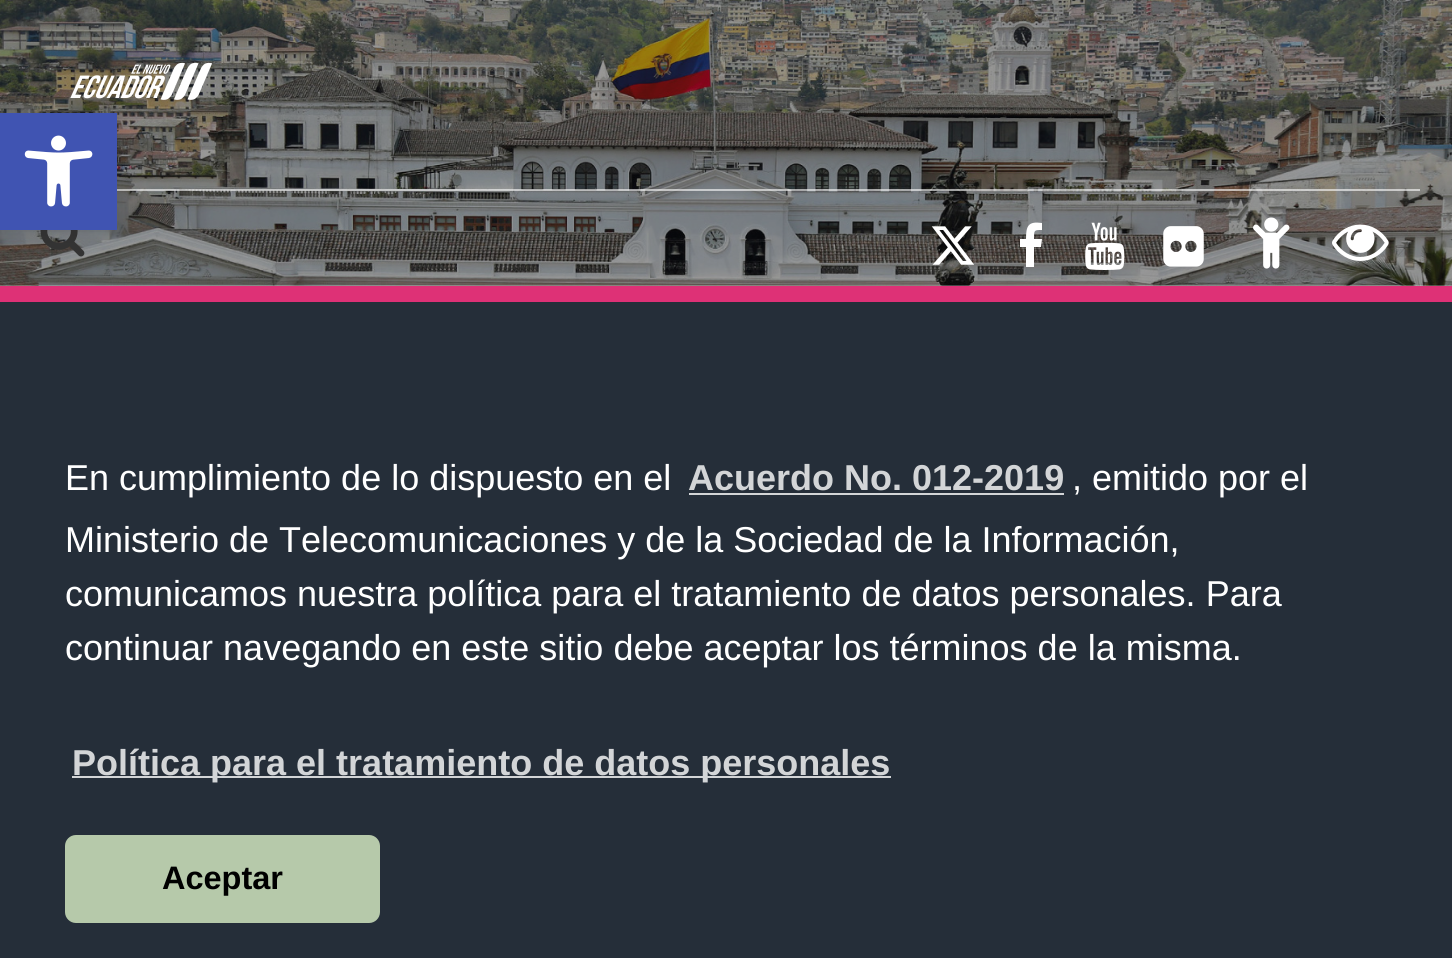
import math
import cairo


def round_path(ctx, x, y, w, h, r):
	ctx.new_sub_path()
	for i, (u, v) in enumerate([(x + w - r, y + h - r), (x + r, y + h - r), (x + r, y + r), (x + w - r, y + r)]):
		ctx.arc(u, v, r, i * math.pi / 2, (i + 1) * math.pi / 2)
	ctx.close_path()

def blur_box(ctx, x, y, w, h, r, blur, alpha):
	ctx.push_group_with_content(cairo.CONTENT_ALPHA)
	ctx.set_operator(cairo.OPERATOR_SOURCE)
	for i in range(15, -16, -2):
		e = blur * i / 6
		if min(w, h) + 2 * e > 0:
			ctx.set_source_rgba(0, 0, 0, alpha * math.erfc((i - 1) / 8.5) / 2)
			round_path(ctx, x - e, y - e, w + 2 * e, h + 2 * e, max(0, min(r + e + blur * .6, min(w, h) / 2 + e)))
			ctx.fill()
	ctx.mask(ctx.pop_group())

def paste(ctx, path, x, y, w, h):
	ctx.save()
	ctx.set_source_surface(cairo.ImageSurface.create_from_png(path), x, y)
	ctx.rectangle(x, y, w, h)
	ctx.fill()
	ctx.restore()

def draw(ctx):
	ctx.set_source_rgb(1, 1, 1)
	ctx.paint()
	paste(ctx, 'media/1.png', 0, 0, 1452, 286)
	paste(ctx, 'media/2.png', 70, 62, 142, 38)
	ctx.set_source_rgba(1, 1, 1, 0.6)
	ctx.rectangle(117, 189, 1303, 2)
	ctx.fill()
	paste(ctx, 'media/3.png', 40, 230, 45, 27)
	paste(ctx, 'media/4.png', 931, 226, 43, 39)
	ctx.set_source_rgb(1, 1, 1)
	ctx.new_path()
	ctx.move_to(1042, 223)
	ctx.line_to(1042, 230)
	ctx.curve_to(1034, 230, 1034, 230, 1034, 239)
	ctx.line_to(1042, 239)
	ctx.line_to(1041, 247)
	ctx.line_to(1034, 247)
	ctx.line_to(1034, 267)
	ctx.line_to(1026, 267)
	ctx.line_to(1026, 247)
	ctx.line_to(1020, 247)
	ctx.line_to(1020, 239)
	ctx.line_to(1026, 239)
	ctx.curve_to(1026, 226, 1028, 221, 1042, 223)
	ctx.close_path()
	ctx.fill()
	paste(ctx, 'media/5.png', 1085, 222, 40, 48)
	paste(ctx, 'media/6.png', 1163, 226, 41, 41)
	paste(ctx, 'media/7.png', 1253, 217, 37, 52)
	paste(ctx, 'media/8.png', 1332, 224, 57, 37)
	ctx.set_source_rgb(0.871, 0.192, 0.463)
	ctx.rectangle(0, 286, 1452, 16)
	ctx.fill()
	ctx.set_source_rgb(0, 0, 0)
	blur_box(ctx, 0, 113, 117, 117, 0, 11, 0.1)
	ctx.set_source_rgb(0.251, 0.329, 0.698)
	ctx.rectangle(0, 113, 117, 117)
	ctx.fill()
	paste(ctx, 'media/9.png', 24, 135, 69, 72)
	ctx.set_source_rgb(0.145, 0.18, 0.224)
	ctx.rectangle(0, 302, 1452, 656)
	ctx.fill()
	ctx.select_font_face('Liberation Sans')
	ctx.set_font_size(36)
	ctx.set_source_rgb(1, 1, 1)
	ctx.move_to(65, 490)
	ctx.show_text('En cumplimiento de lo dispuesto en el')
	ctx.select_font_face('Liberation Sans', cairo.FONT_SLANT_NORMAL, cairo.FONT_WEIGHT_BOLD)
	ctx.set_source_rgb(0.827, 0.835, 0.843)
	ctx.move_to(688, 490)
	ctx.show_text('Acuerdo No. 012-2019')
	ctx.rectangle(689, 493, 375, 2)
	ctx.fill()
	ctx.select_font_face('Liberation Sans')
	ctx.set_source_rgb(1, 1, 1)
	for x, y, s in [
		(1072, 490, ', emitido por el'),
		(65, 552, 'Ministerio de Telecomunicaciones y de la Sociedad de la Información,'),
		(65, 606, 'comunicamos nuestra política para el tratamiento de datos personales. Para'),
		(65, 660, 'continuar navegando en este sitio debe aceptar los términos de la misma.'),
	]:
		ctx.move_to(x, y)
		ctx.show_text(s)
	ctx.set_source_rgb(0.827, 0.835, 0.843)
	ctx.rectangle(72, 776, 819, 2)
	ctx.fill()
	ctx.select_font_face('Liberation Sans', cairo.FONT_SLANT_NORMAL, cairo.FONT_WEIGHT_BOLD)
	ctx.move_to(72, 775)
	ctx.show_text('Política para el tratamiento de datos personales')
	ctx.set_source_rgb(0.714, 0.788, 0.667)
	round_path(ctx, 65, 835, 315, 88, 11)
	ctx.fill()
	ctx.set_font_size(32.5)
	ctx.set_source_rgb(0, 0, 0)
	ctx.move_to(162, 889)
	ctx.show_text('Aceptar')


surface = cairo.ImageSurface(cairo.FORMAT_RGB24, 1452, 958)
ctx = cairo.Context(surface)
options = cairo.FontOptions()
options.set_hint_metrics(cairo.HINT_METRICS_OFF)
options.set_hint_style(cairo.HINT_STYLE_NONE)
ctx.set_font_options(options)
ctx.set_miter_limit(4)
draw(ctx)
surface.write_to_png('image.png')
